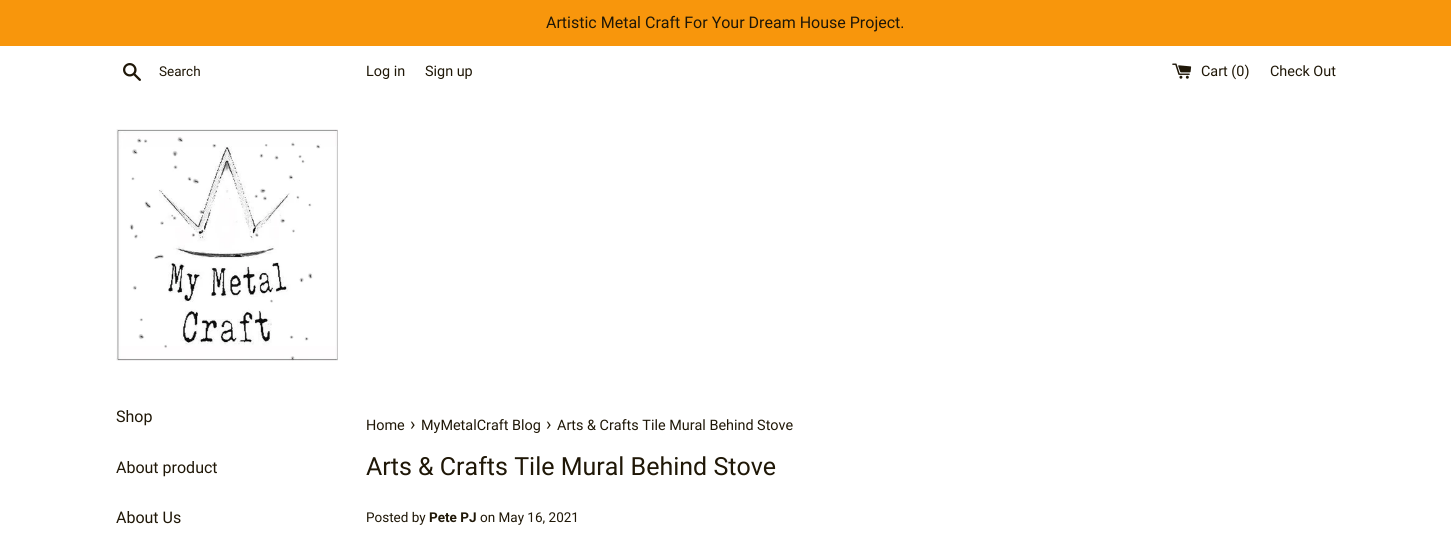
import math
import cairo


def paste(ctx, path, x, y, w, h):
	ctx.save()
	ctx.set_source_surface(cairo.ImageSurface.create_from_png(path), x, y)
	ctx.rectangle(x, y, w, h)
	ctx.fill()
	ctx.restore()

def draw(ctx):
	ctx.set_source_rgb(1, 1, 1)
	ctx.paint()
	ctx.set_source_rgb(0.969, 0.588, 0.047)
	ctx.rectangle(0, 0, 1451, 46)
	ctx.fill()
	ctx.select_font_face('Roboto')
	ctx.set_font_size(16)
	ctx.set_source_rgb(0.122, 0.09, 0.031)
	ctx.move_to(546, 28)
	ctx.show_text('Artistic Metal Craft For Your Dream House Project.')
	paste(ctx, 'media/1.png', 123, 63, 18, 18)
	ctx.set_font_size(13.5)
	ctx.move_to(159, 76)
	ctx.show_text('Search')
	ctx.set_font_size(14.4)
	ctx.move_to(366, 76)
	ctx.show_text('Log in')
	ctx.move_to(425, 76)
	ctx.show_text('Sign up')
	paste(ctx, 'media/2.png', 1172, 63, 20, 16)
	ctx.move_to(1201, 76)
	ctx.show_text('Cart (0)')
	ctx.move_to(1270, 76)
	ctx.show_text('Check Out')
	paste(ctx, 'media/3.png', 116, 129, 222, 232)
	ctx.set_font_size(16)
	for x, y, s in [
		(116, 422, 'Shop'),
		(116, 473, 'About product'),
		(116, 523, 'About Us'),
	]:
		ctx.move_to(x, y)
		ctx.show_text(s)
	ctx.set_font_size(14.4)
	ctx.move_to(366, 430)
	ctx.show_text('Home')
	ctx.set_font_size(18)
	ctx.move_to(410, 430)
	ctx.show_text('›')
	ctx.set_font_size(14.4)
	ctx.move_to(421, 430)
	ctx.show_text('MyMetalCraft Blog')
	ctx.set_font_size(18)
	ctx.move_to(546, 430)
	ctx.show_text('›')
	ctx.set_font_size(14.4)
	ctx.move_to(557, 430)
	ctx.show_text('Arts & Crafts Tile Mural Behind Stove')
	ctx.set_font_size(25)
	ctx.move_to(366, 475)
	ctx.show_text('Arts & Crafts Tile Mural Behind Stove')
	ctx.set_font_size(13.5)
	ctx.move_to(366, 522)
	ctx.show_text('Posted by')
	ctx.select_font_face('Roboto', cairo.FONT_SLANT_NORMAL, cairo.FONT_WEIGHT_BOLD)
	ctx.move_to(429, 522)
	ctx.show_text('Pete PJ')
	ctx.select_font_face('Roboto')
	ctx.move_to(480, 522)
	ctx.show_text('on May 16, 2021')


surface = cairo.ImageSurface(cairo.FORMAT_RGB24, 1451, 544)
ctx = cairo.Context(surface)
options = cairo.FontOptions()
options.set_hint_metrics(cairo.HINT_METRICS_OFF)
options.set_hint_style(cairo.HINT_STYLE_NONE)
ctx.set_font_options(options)
ctx.set_miter_limit(4)
draw(ctx)
surface.write_to_png('image.png')
